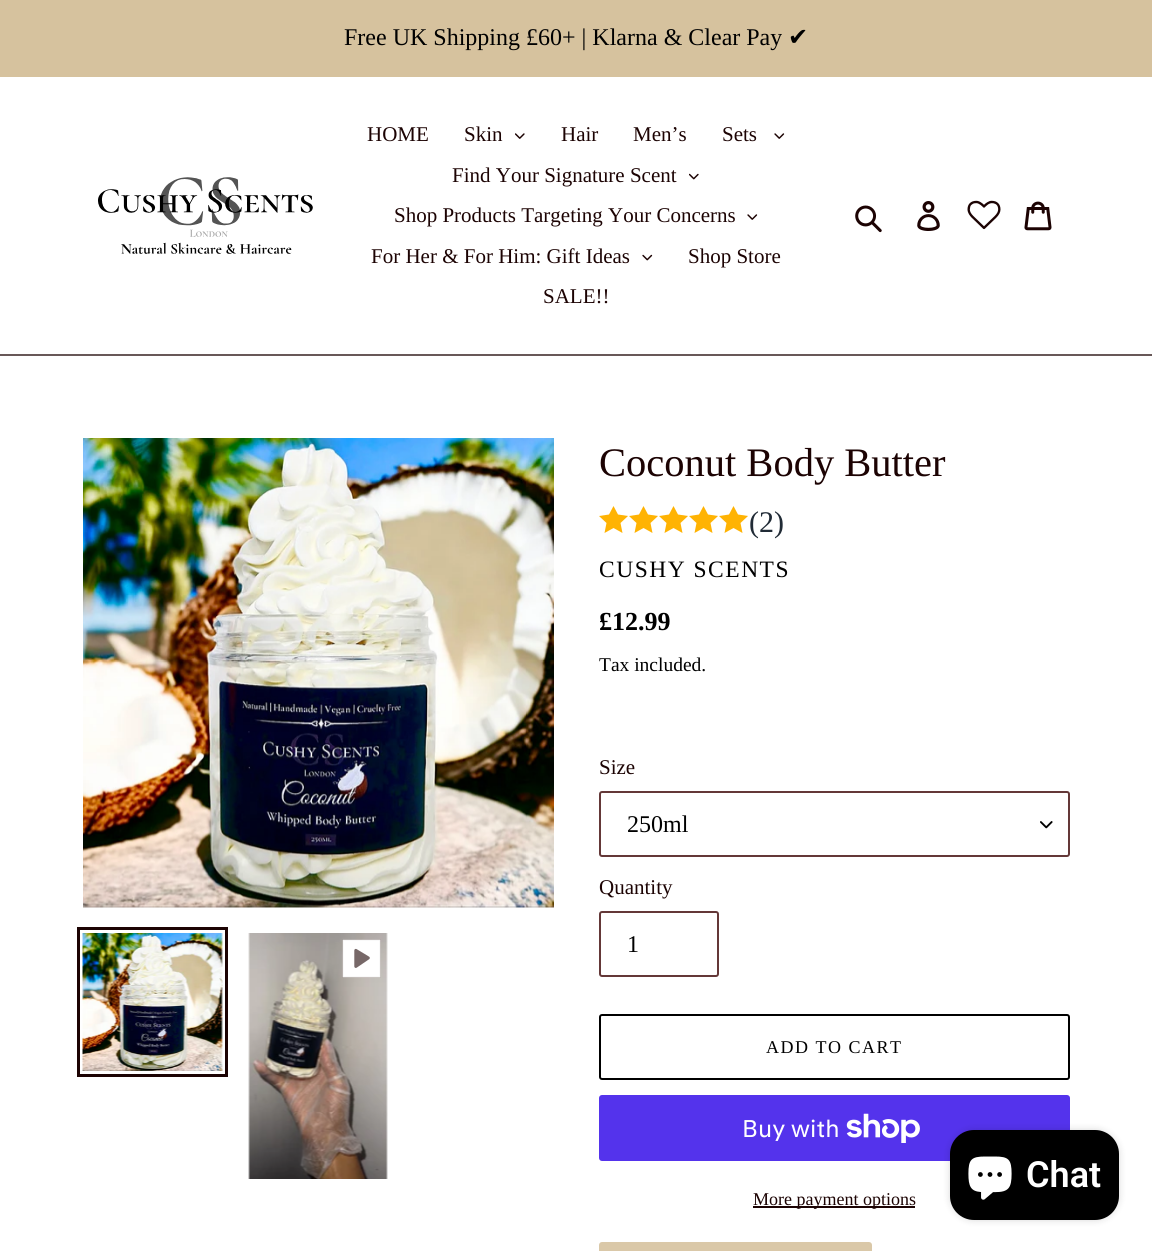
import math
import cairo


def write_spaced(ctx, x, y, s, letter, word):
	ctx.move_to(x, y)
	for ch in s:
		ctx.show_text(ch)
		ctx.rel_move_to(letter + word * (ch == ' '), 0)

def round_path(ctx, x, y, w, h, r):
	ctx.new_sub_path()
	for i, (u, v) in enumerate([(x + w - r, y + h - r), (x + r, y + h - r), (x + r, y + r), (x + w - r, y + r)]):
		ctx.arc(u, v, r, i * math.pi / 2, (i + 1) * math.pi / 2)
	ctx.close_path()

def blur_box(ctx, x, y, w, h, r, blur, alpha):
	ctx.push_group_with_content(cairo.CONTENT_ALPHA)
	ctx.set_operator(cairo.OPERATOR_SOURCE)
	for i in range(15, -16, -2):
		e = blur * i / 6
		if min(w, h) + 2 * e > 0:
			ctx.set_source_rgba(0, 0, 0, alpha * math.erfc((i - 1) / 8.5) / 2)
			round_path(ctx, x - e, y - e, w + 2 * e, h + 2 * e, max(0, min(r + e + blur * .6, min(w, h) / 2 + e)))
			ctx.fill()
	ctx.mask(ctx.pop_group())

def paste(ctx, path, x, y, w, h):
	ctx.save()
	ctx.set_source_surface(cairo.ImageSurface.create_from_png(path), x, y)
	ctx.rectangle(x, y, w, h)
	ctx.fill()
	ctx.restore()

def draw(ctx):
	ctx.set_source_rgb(1, 1, 1)
	ctx.paint()
	ctx.set_source_rgb(0.839, 0.761, 0.62)
	ctx.rectangle(0, 0, 1152, 77)
	ctx.fill()
	ctx.select_font_face('Liberation Serif')
	ctx.set_font_size(24)
	ctx.set_source_rgb(0, 0, 0)
	ctx.move_to(344, 45)
	ctx.show_text('Free UK Shipping £60+ | Klarna & Clear Pay')
	ctx.select_font_face('DejaVu Sans')
	ctx.move_to(788, 45)
	ctx.show_text('✔')
	ctx.set_source_rgb(0.408, 0.345, 0.345)
	ctx.rectangle(0, 354, 1152, 2)
	ctx.fill()
	paste(ctx, 'media/1.png', 98, 177, 215, 77)
	ctx.select_font_face('Liberation Serif')
	ctx.set_font_size(21)
	ctx.set_source_rgb(0.11, 0.012, 0.012)
	ctx.move_to(367, 141)
	ctx.show_text('HOME')
	ctx.move_to(464, 141)
	ctx.show_text('Skin')
	paste(ctx, 'media/2.png', 515, 133, 10, 6)
	for x, y, s in [
		(561, 141, 'Hair'),
		(633, 141, 'Men’s'),
		(722, 141, 'Sets'),
	]:
		ctx.move_to(x, y)
		ctx.show_text(s)
	paste(ctx, 'media/3.png', 774, 133, 11, 6)
	ctx.move_to(452, 182)
	ctx.show_text('Find Your Signature Scent')
	paste(ctx, 'media/4.png', 689, 173, 10, 7)
	ctx.move_to(394, 222)
	ctx.show_text('Shop Products Targeting Your Concerns')
	paste(ctx, 'media/3.png', 747, 214, 11, 6)
	ctx.move_to(371, 263)
	ctx.show_text('For Her & For Him: Gift Ideas')
	paste(ctx, 'media/5.png', 642, 254, 11, 7)
	ctx.move_to(688, 263)
	ctx.show_text('Shop Store')
	ctx.move_to(543, 303)
	ctx.show_text('SALE!!')
	paste(ctx, 'media/6.png', 855, 205, 27, 28)
	paste(ctx, 'media/7.png', 917, 201, 23, 30)
	paste(ctx, 'media/8.png', 967, 200, 34, 30)
	paste(ctx, 'media/9.png', 1024, 201, 28, 30)
	paste(ctx, 'media/10.png', 83, 438, 471, 470)
	ctx.rectangle(78.5, 928.5, 148, 147)
	ctx.set_line_width(3)
	ctx.stroke()
	paste(ctx, 'media/11.png', 82, 933, 141, 138)
	paste(ctx, 'media/12.png', 248, 933, 140, 246)
	paste(ctx, 'media/13.png', 342, 939, 39, 39)
	ctx.set_font_size(40.5)
	ctx.move_to(599, 476)
	ctx.show_text('Coconut Body Butter')
	ctx.set_source_rgb(1, 0.702, 0.012)
	ctx.new_path()
	ctx.move_to(613.5, 506)
	ctx.line_to(609, 514.5)
	ctx.line_to(599, 516)
	ctx.line_to(606.5, 523)
	ctx.line_to(604.5, 533)
	ctx.line_to(613.5, 528)
	ctx.line_to(622.5, 533)
	ctx.line_to(620.5, 523)
	ctx.line_to(628, 516)
	ctx.line_to(618, 514.5)
	ctx.close_path()
	ctx.move_to(643.5, 506)
	ctx.line_to(639, 514.5)
	ctx.line_to(629, 516)
	ctx.line_to(636.5, 523)
	ctx.line_to(634.5, 533)
	ctx.line_to(643.5, 528)
	ctx.line_to(652.5, 533)
	ctx.line_to(650.5, 523)
	ctx.line_to(658, 516)
	ctx.line_to(648, 514.5)
	ctx.close_path()
	ctx.fill()
	ctx.new_path()
	ctx.move_to(673.5, 506)
	ctx.line_to(669, 514.5)
	ctx.line_to(659, 516)
	ctx.line_to(666.5, 523)
	ctx.line_to(664.5, 533)
	ctx.line_to(673.5, 528)
	ctx.line_to(682.5, 533)
	ctx.line_to(680.5, 523)
	ctx.line_to(688, 516)
	ctx.line_to(678, 514.5)
	ctx.close_path()
	ctx.move_to(703.5, 506)
	ctx.line_to(699, 514.5)
	ctx.line_to(689, 516)
	ctx.line_to(696.5, 523)
	ctx.line_to(694.5, 533)
	ctx.line_to(703.5, 528)
	ctx.line_to(712.5, 533)
	ctx.line_to(710.5, 523)
	ctx.line_to(718, 516)
	ctx.line_to(708, 514.5)
	ctx.close_path()
	ctx.fill()
	ctx.new_path()
	ctx.move_to(733.5, 506)
	ctx.line_to(729, 514.5)
	ctx.line_to(719, 516)
	ctx.line_to(726.5, 523)
	ctx.line_to(724.5, 533)
	ctx.line_to(733.5, 528)
	ctx.line_to(742.5, 533)
	ctx.line_to(740.5, 523)
	ctx.line_to(748, 516)
	ctx.line_to(738, 514.5)
	ctx.close_path()
	ctx.fill()
	ctx.set_font_size(30)
	ctx.set_source_rgb(0.129, 0.169, 0.212)
	ctx.move_to(749, 532)
	ctx.show_text('(2)')
	ctx.set_font_size(23.5)
	ctx.set_source_rgb(0, 0, 0)
	write_spaced(ctx, 599, 577, 'CUSHY SCENTS', 1.5, 0)
	ctx.select_font_face('Liberation Serif', cairo.FONT_SLANT_NORMAL, cairo.FONT_WEIGHT_BOLD)
	ctx.set_font_size(26)
	ctx.move_to(599, 630)
	ctx.show_text('£12.99')
	ctx.select_font_face('Liberation Serif')
	ctx.set_font_size(19.5)
	ctx.move_to(599, 671)
	ctx.show_text('Tax included.')
	ctx.set_font_size(21)
	ctx.set_source_rgb(0.11, 0.012, 0.012)
	ctx.move_to(599, 774)
	ctx.show_text('Size')
	paste(ctx, 'media/14.png', 1040, 821, 13, 8)
	round_path(ctx, 600, 792, 469, 64, 2)
	ctx.set_source_rgb(0.392, 0.22, 0.22)
	ctx.set_line_width(2)
	ctx.stroke()
	ctx.set_font_size(24)
	ctx.set_source_rgb(0, 0, 0)
	ctx.move_to(627, 832)
	ctx.show_text('250ml')
	ctx.set_font_size(21)
	ctx.set_source_rgb(0.11, 0.012, 0.012)
	ctx.move_to(599, 894)
	ctx.show_text('Quantity')
	round_path(ctx, 600, 912, 118, 64, 2)
	ctx.set_source_rgb(0.392, 0.22, 0.22)
	ctx.stroke()
	ctx.set_font_size(24)
	ctx.set_source_rgb(0, 0, 0)
	ctx.move_to(627, 952)
	ctx.show_text('1')
	round_path(ctx, 600, 1015, 469, 64, 2)
	ctx.stroke()
	ctx.set_font_size(18)
	write_spaced(ctx, 766, 1053, 'ADD TO CART', 1.5, 0)
	ctx.set_source_rgb(0.329, 0.2, 0.922)
	round_path(ctx, 599, 1095, 471, 66, 3)
	ctx.fill()
	ctx.select_font_face('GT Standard')
	ctx.set_font_size(24)
	ctx.set_source_rgb(1, 1, 1)
	ctx.move_to(742, 1137)
	ctx.show_text('Buy with')
	paste(ctx, 'media/15.png', 846, 1113, 74, 30)
	ctx.set_source_rgb(0.11, 0.012, 0.012)
	ctx.rectangle(753, 1206, 162, 2)
	ctx.fill()
	ctx.select_font_face('Liberation Serif')
	ctx.set_font_size(18)
	ctx.move_to(753, 1205)
	ctx.show_text('More payment options')
	ctx.set_source_rgb(0.855, 0.784, 0.659)
	round_path(ctx, 599, 1242, 273, 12, 3)
	ctx.fill()
	ctx.set_source_rgb(0, 0, 0)
	blur_box(ctx, 950, 1130, 169, 90, 24, 4, 0.15)
	ctx.set_source_rgb(0, 0, 0)
	round_path(ctx, 950, 1130, 169, 90, 24)
	ctx.fill()
	paste(ctx, 'media/16.png', 968, 1156, 44, 44)
	ctx.select_font_face('Roboto SemiBold')
	ctx.set_font_size(36)
	ctx.set_source_rgb(1, 1, 1)
	ctx.move_to(1026, 1187)
	ctx.show_text('Chat')


surface = cairo.ImageSurface(cairo.FORMAT_RGB24, 1152, 1251)
ctx = cairo.Context(surface)
options = cairo.FontOptions()
options.set_hint_metrics(cairo.HINT_METRICS_OFF)
options.set_hint_style(cairo.HINT_STYLE_NONE)
ctx.set_font_options(options)
ctx.set_miter_limit(4)
draw(ctx)
surface.write_to_png('image.png')
